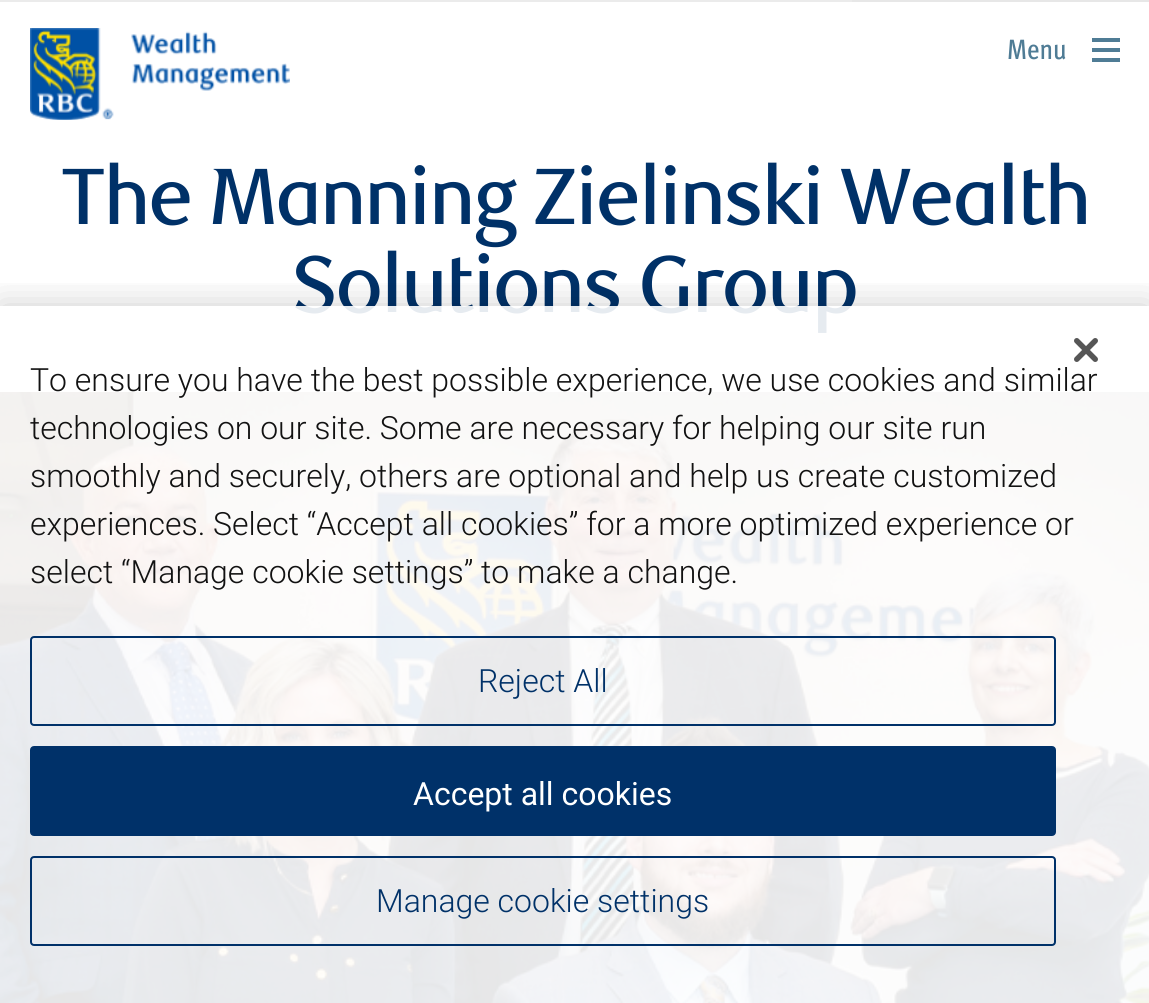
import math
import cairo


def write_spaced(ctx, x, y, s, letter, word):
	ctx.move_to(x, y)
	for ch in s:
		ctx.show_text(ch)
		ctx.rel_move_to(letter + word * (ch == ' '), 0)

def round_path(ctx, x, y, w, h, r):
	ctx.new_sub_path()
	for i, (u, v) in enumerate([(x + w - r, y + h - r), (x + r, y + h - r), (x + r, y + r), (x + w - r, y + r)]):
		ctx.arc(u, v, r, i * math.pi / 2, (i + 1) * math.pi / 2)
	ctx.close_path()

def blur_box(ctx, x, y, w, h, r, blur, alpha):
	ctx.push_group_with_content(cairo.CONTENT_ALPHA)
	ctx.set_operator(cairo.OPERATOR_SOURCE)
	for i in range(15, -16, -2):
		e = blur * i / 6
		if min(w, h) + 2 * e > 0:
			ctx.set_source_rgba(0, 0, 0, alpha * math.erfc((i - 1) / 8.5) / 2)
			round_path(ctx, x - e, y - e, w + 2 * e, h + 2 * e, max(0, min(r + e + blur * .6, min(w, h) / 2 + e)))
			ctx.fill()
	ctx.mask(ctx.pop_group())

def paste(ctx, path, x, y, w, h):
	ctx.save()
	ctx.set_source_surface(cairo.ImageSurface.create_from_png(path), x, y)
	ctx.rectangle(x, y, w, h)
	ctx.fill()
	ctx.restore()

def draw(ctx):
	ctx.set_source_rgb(1, 1, 1)
	ctx.paint()
	ctx.set_source_rgb(0.918, 0.918, 0.918)
	ctx.rectangle(0, 0, 852, 2)
	ctx.fill()
	ctx.set_source_rgb(0.906, 0.906, 0.906)
	ctx.rectangle(852, 0, 297, 2)
	ctx.fill()
	paste(ctx, 'media/1.png', 30, 28, 260, 92)
	ctx.select_font_face('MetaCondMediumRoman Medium')
	ctx.set_font_size(28)
	ctx.set_source_rgb(0.31, 0.486, 0.584)
	ctx.move_to(1007, 59)
	ctx.show_text('Menu')
	paste(ctx, 'media/2.png', 1092, 38, 28, 24)
	ctx.select_font_face('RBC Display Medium')
	ctx.set_font_size(80)
	ctx.set_source_rgb(0, 0.192, 0.408)
	write_spaced(ctx, 61, 224, 'The Manning Zielinski Wealth', -2, 0)
	write_spaced(ctx, 292, 312, 'Solutions Group', -2, 0)
	paste(ctx, 'media/4.png', 0, 392, 1149, 611)
	ctx.save()
	ctx.rectangle(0, 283, 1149, 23)
	ctx.clip()
	ctx.set_source_rgb(0, 0, 0)
	blur_box(ctx, 0, 306, 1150, 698, 0, 18, 0.2)
	ctx.restore()
	ctx.set_source_rgba(1, 1, 1, 0.9)
	ctx.rectangle(0, 306, 1149, 697)
	ctx.fill()
	paste(ctx, 'media/3.png', 1074, 338, 24, 24)
	ctx.select_font_face('Roboto Light')
	ctx.set_font_size(32)
	ctx.set_source_rgb(0.071, 0.071, 0.071)
	for x, y, s in [
		(30, 391, 'To ensure you have the best possible experience, we use cookies and similar'),
		(30, 439, 'technologies on our site. Some are necessary for helping our site run'),
		(30, 487, 'smoothly and securely, others are optional and help us create customized'),
		(30, 535, 'experiences. Select “Accept all cookies” for a more optimized experience or'),
		(30, 583, 'select “Manage cookie settings” to make a change.'),
	]:
		ctx.move_to(x, y)
		ctx.show_text(s)
	round_path(ctx, 31, 637, 1024, 88, 3)
	ctx.set_source_rgb(0, 0.192, 0.412)
	ctx.stroke()
	ctx.set_source_rgb(0, 0.192, 0.408)
	ctx.move_to(478, 692)
	ctx.show_text('Reject All')
	ctx.set_source_rgb(0, 0.192, 0.412)
	round_path(ctx, 31, 747, 1024, 88, 3)
	ctx.fill_preserve()
	ctx.stroke()
	ctx.select_font_face('Roboto')
	ctx.set_source_rgb(1, 1, 1)
	ctx.move_to(413, 805)
	ctx.show_text('Accept all cookies')
	round_path(ctx, 31, 857, 1024, 88, 3)
	ctx.set_source_rgb(0, 0.192, 0.412)
	ctx.stroke()
	ctx.select_font_face('Roboto Light')
	ctx.set_source_rgb(0, 0.192, 0.408)
	ctx.move_to(376, 912)
	ctx.show_text('Manage cookie settings')


surface = cairo.ImageSurface(cairo.FORMAT_RGB24, 1149, 1003)
ctx = cairo.Context(surface)
options = cairo.FontOptions()
options.set_hint_metrics(cairo.HINT_METRICS_OFF)
options.set_hint_style(cairo.HINT_STYLE_NONE)
ctx.set_font_options(options)
ctx.set_miter_limit(4)
draw(ctx)
surface.write_to_png('image.png')
